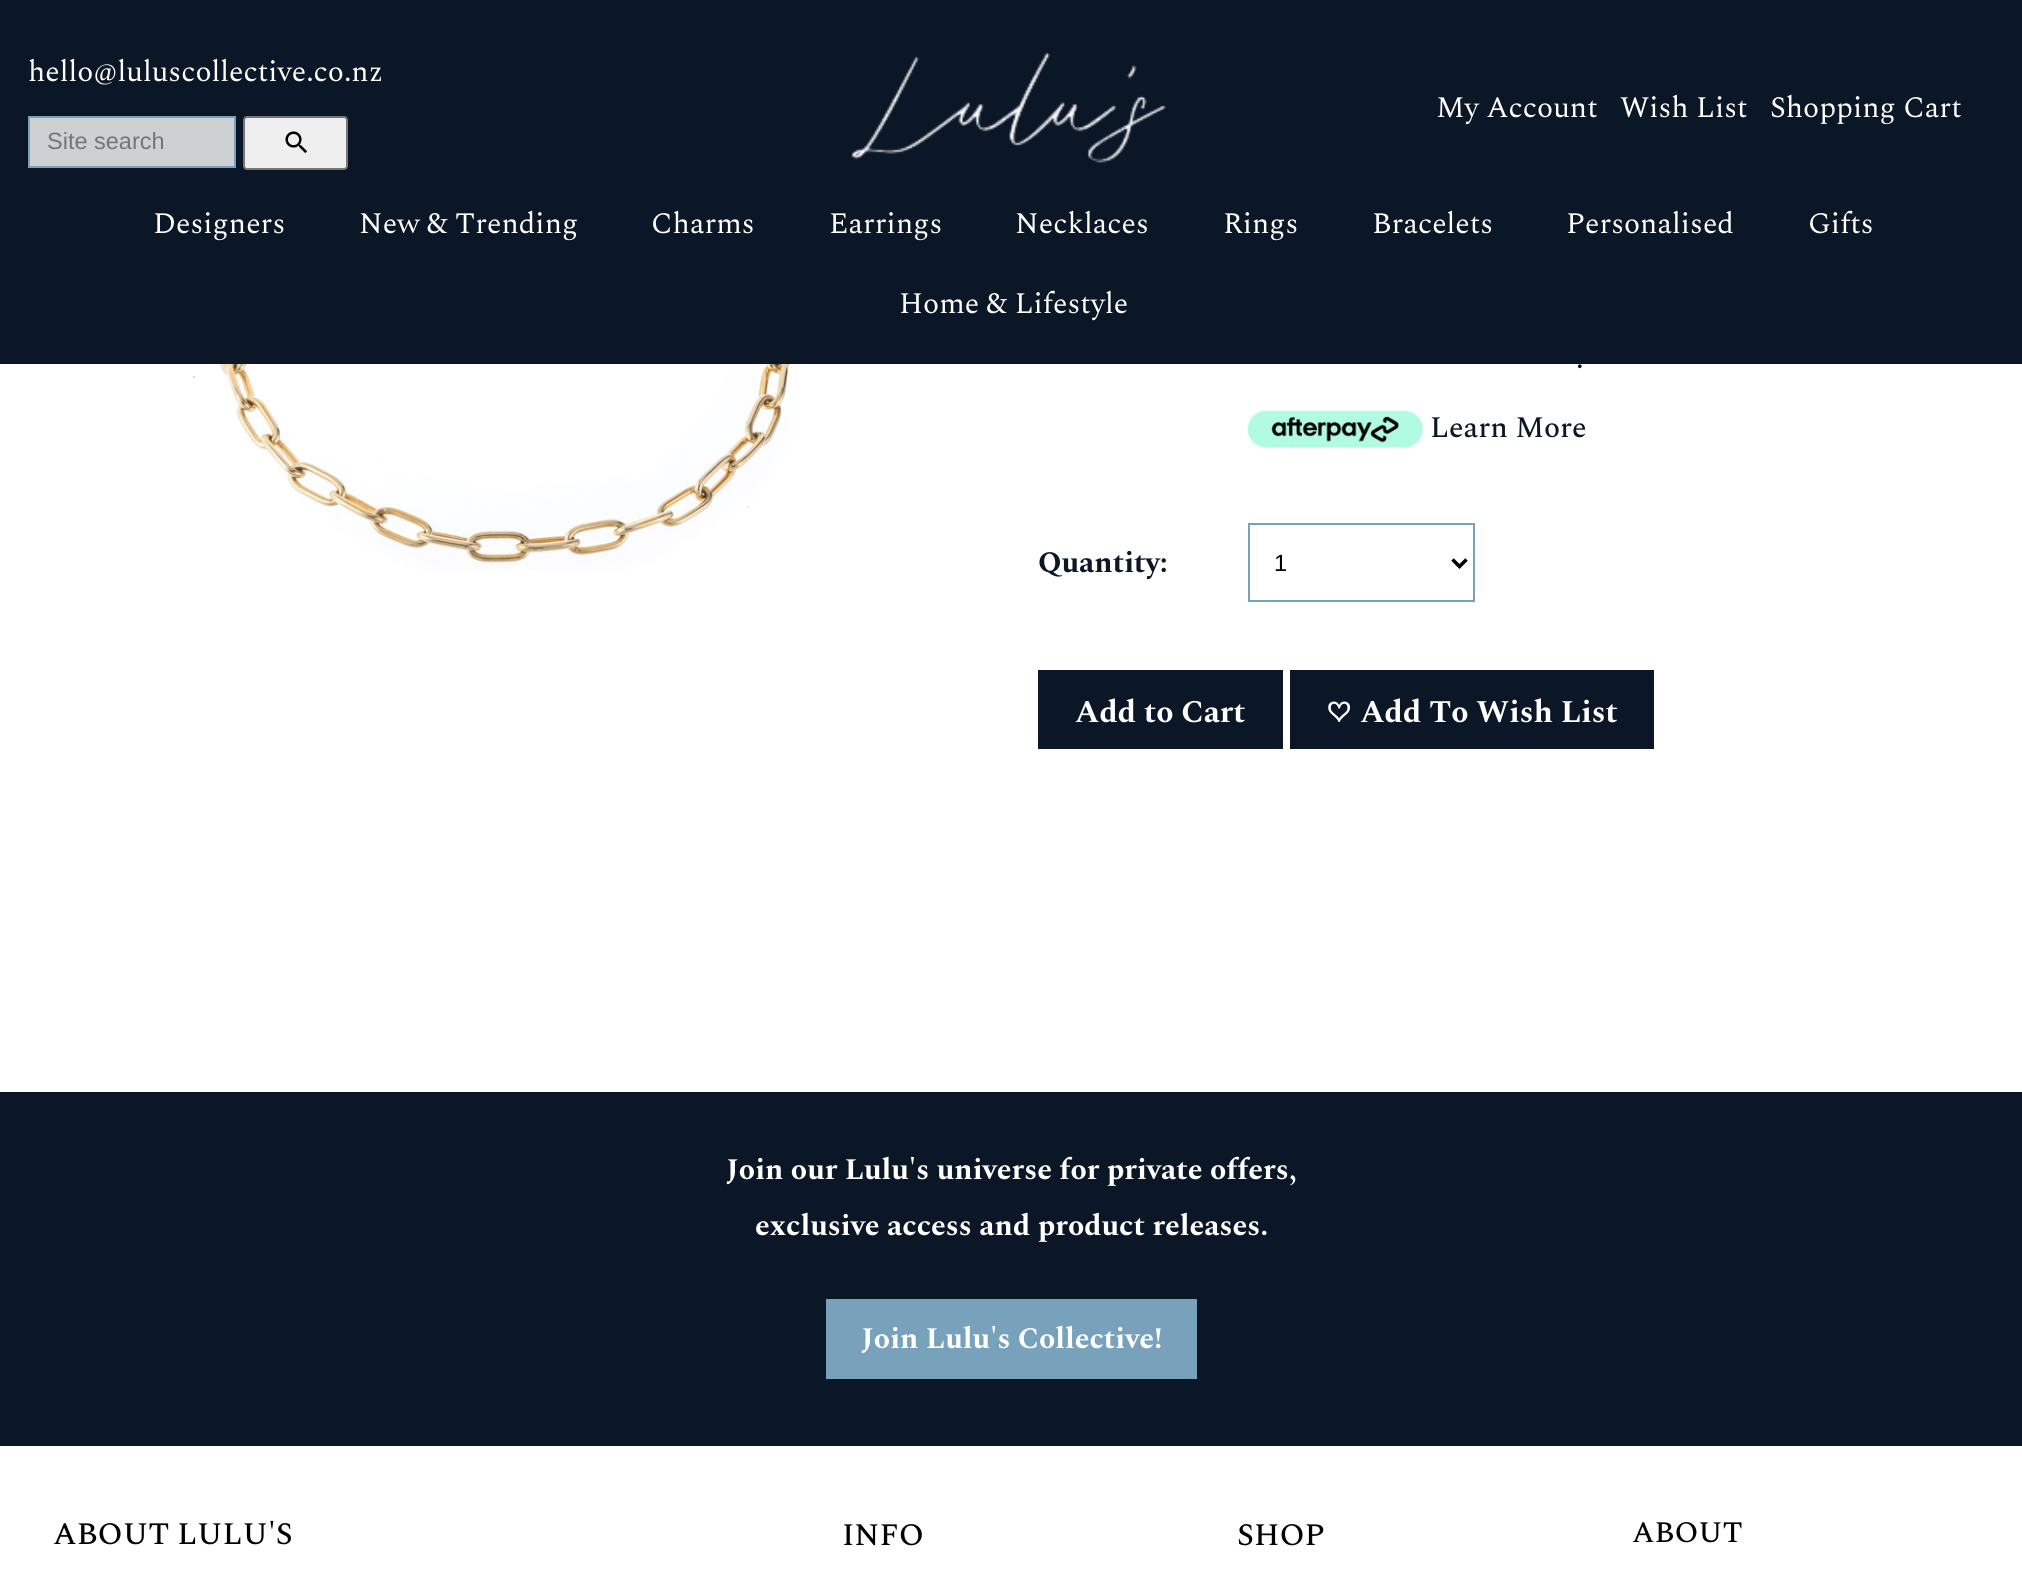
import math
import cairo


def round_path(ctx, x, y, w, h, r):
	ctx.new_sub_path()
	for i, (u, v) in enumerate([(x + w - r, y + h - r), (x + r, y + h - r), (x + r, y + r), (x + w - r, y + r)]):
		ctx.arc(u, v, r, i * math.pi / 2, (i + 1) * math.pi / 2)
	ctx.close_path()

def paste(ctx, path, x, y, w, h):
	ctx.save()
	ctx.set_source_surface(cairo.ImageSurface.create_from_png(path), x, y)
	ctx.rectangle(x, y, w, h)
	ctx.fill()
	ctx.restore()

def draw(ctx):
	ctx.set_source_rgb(1, 1, 1)
	ctx.paint()
	ctx.set_source_rgb(0.043, 0.09, 0.153)
	ctx.rectangle(0, 0, 2022, 364)
	ctx.fill()
	ctx.select_font_face('Spectral')
	ctx.set_font_size(29.75)
	ctx.set_source_rgb(1, 1, 1)
	ctx.move_to(28, 81)
	ctx.show_text('hello@luluscollective.co.nz')
	ctx.set_source_rgb(0.808, 0.82, 0.831)
	ctx.rectangle(29, 117, 206, 50)
	ctx.fill_preserve()
	ctx.set_source_rgb(0.471, 0.631, 0.733)
	ctx.stroke()
	ctx.select_font_face('Liberation Sans')
	ctx.set_font_size(23.5)
	ctx.set_source_rgb(0.459, 0.459, 0.459)
	ctx.move_to(47, 149)
	ctx.show_text('Site search')
	ctx.set_source_rgb(0.937, 0.937, 0.937)
	round_path(ctx, 244, 117, 103, 52, 3)
	ctx.fill_preserve()
	ctx.set_source_rgb(0.463, 0.463, 0.463)
	ctx.stroke()
	paste(ctx, 'media/1.png', 285, 131, 22, 22)
	paste(ctx, 'media/2.png', 851, 52, 315, 111)
	ctx.select_font_face('Spectral')
	ctx.set_font_size(29.75)
	ctx.set_source_rgb(1, 1, 1)
	for x, y, s in [
		(1436, 117, 'My Account'),
		(1620, 117, 'Wish List'),
		(1770, 117, 'Shopping Cart'),
		(153, 233, 'Designers'),
		(359, 233, 'New & Trending'),
		(651, 233, 'Charms'),
		(829, 233, 'Earrings'),
		(1015, 233, 'Necklaces'),
		(1223, 233, 'Rings'),
		(1372, 233, 'Bracelets'),
		(1566, 233, 'Personalised'),
		(1808, 233, 'Gifts'),
		(899, 313, 'Home & Lifestyle'),
	]:
		ctx.move_to(x, y)
		ctx.show_text(s)
	paste(ctx, 'media/3.png', 193, 364, 617, 207)
	ctx.select_font_face('Spectral Medium')
	ctx.set_source_rgb(0.043, 0.09, 0.153)
	ctx.move_to(1576, 368)
	ctx.show_text('.')
	paste(ctx, 'media/4.png', 1247, 410, 176, 38)
	ctx.move_to(1430, 437)
	ctx.show_text('Learn More')
	ctx.select_font_face('Spectral', cairo.FONT_SLANT_NORMAL, cairo.FONT_WEIGHT_BOLD)
	ctx.move_to(1038, 572)
	ctx.show_text('Quantity:')
	ctx.rectangle(1249, 524, 225, 77)
	ctx.set_source_rgb(0.471, 0.631, 0.733)
	ctx.stroke()
	ctx.new_path()
	ctx.move_to(1452.5, 559.5)
	ctx.line_to(1459.5, 566.5)
	ctx.line_to(1466.5, 559.5)
	ctx.set_source_rgb(0, 0, 0)
	ctx.set_line_width(3.5)
	ctx.stroke()
	ctx.select_font_face('Liberation Sans')
	ctx.set_font_size(23.5)
	ctx.move_to(1274, 571)
	ctx.show_text('1')
	ctx.set_source_rgb(0.043, 0.09, 0.153)
	ctx.rectangle(1038, 670, 245, 79)
	ctx.fill()
	ctx.select_font_face('Spectral', cairo.FONT_SLANT_NORMAL, cairo.FONT_WEIGHT_BOLD)
	ctx.set_font_size(31.5)
	ctx.set_source_rgb(1, 1, 1)
	ctx.move_to(1075, 722)
	ctx.show_text('Add to Cart')
	ctx.set_source_rgb(0.043, 0.09, 0.153)
	ctx.rectangle(1290, 670, 364, 79)
	ctx.fill()
	ctx.set_source_rgb(1, 1, 1)
	ctx.move_to(1326, 722)
	ctx.show_text('♡ Add To Wish List')
	ctx.set_source_rgb(0.043, 0.09, 0.153)
	ctx.rectangle(0, 1092, 2022, 354)
	ctx.fill()
	ctx.set_font_size(29.75)
	ctx.set_source_rgb(1, 1, 1)
	ctx.move_to(726, 1179)
	ctx.show_text('Join our Lulu\'s universe for private offers,')
	ctx.move_to(755, 1235)
	ctx.show_text('exclusive access and product releases.')
	ctx.set_source_rgb(0.471, 0.631, 0.733)
	ctx.rectangle(826, 1299, 371, 80)
	ctx.fill()
	ctx.set_source_rgb(1, 1, 1)
	ctx.move_to(861, 1348)
	ctx.show_text('Join Lulu\'s Collective!')
	ctx.select_font_face('Spectral Medium')
	ctx.set_font_size(31.25)
	ctx.set_source_rgb(0, 0, 0)
	for x, y, s in [
		(53, 1544, 'ABOUT LULU\'S'),
		(842, 1545, 'INFO'),
		(1237, 1545, 'SHOP'),
	]:
		ctx.move_to(x, y)
		ctx.show_text(s)
	ctx.set_font_size(29.75)
	ctx.move_to(1632, 1542)
	ctx.show_text('ABOUT')


surface = cairo.ImageSurface(cairo.FORMAT_RGB24, 2022, 1581)
ctx = cairo.Context(surface)
options = cairo.FontOptions()
options.set_hint_metrics(cairo.HINT_METRICS_OFF)
options.set_hint_style(cairo.HINT_STYLE_NONE)
ctx.set_font_options(options)
ctx.set_miter_limit(4)
draw(ctx)
surface.write_to_png('image.png')
